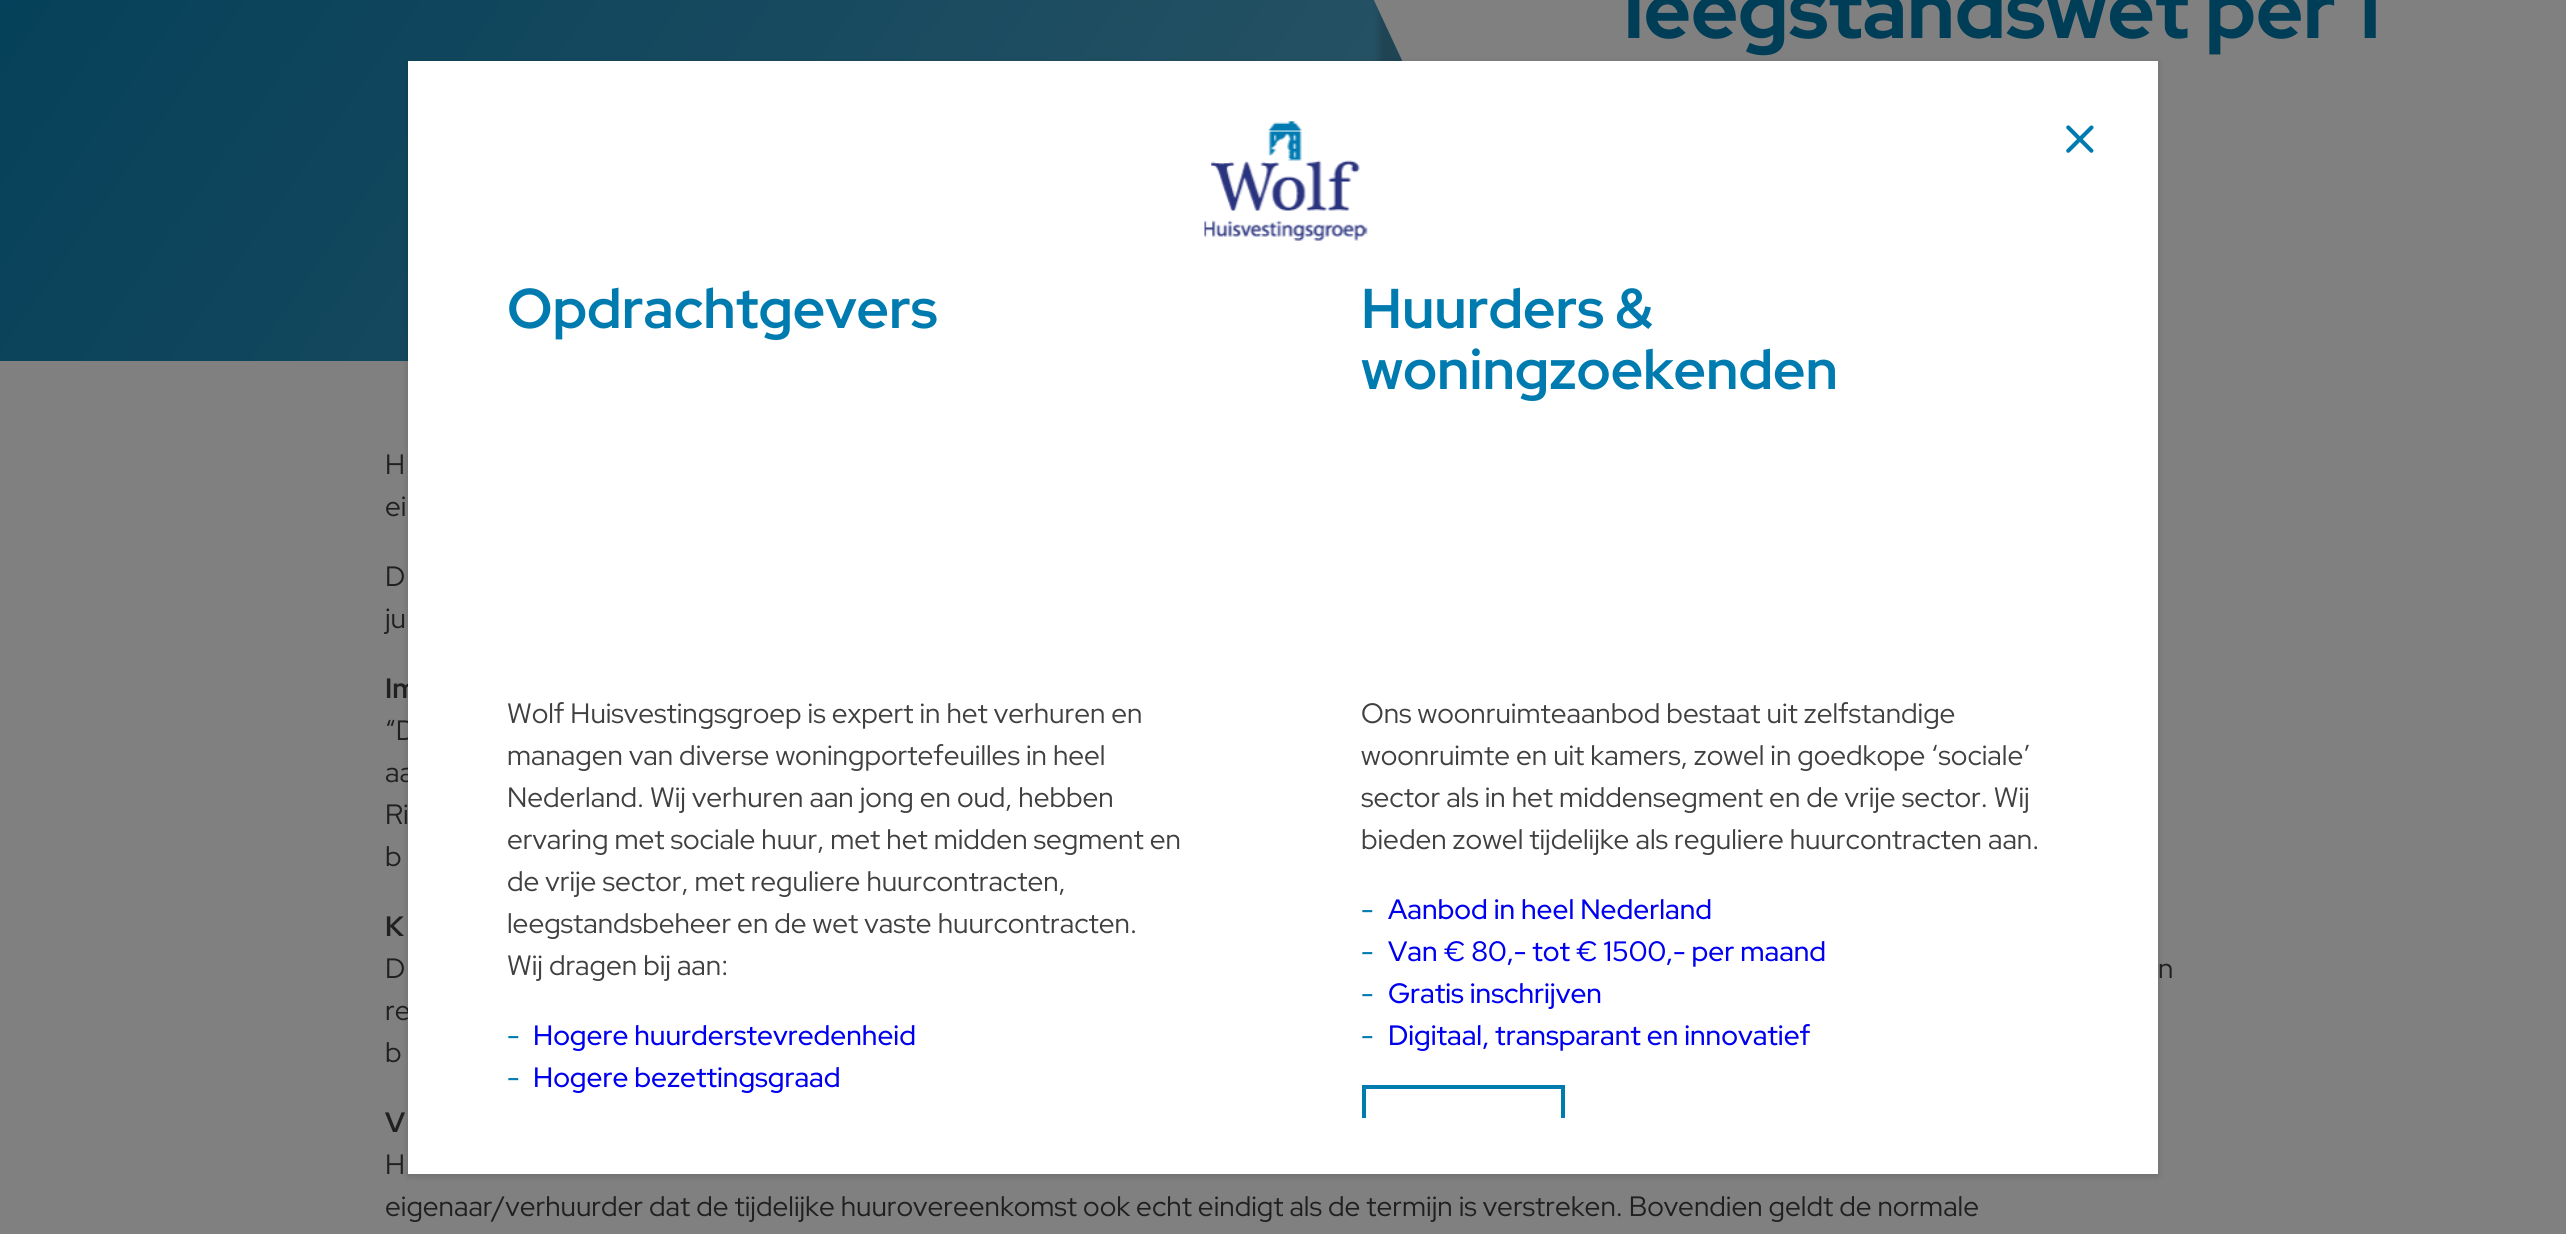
import math
import cairo


def round_path(ctx, x, y, w, h, r):
	ctx.new_sub_path()
	for i, (u, v) in enumerate([(x + w - r, y + h - r), (x + r, y + h - r), (x + r, y + r), (x + w - r, y + r)]):
		ctx.arc(u, v, r, i * math.pi / 2, (i + 1) * math.pi / 2)
	ctx.close_path()

def blur_box(ctx, x, y, w, h, r, blur, alpha):
	ctx.push_group_with_content(cairo.CONTENT_ALPHA)
	ctx.set_operator(cairo.OPERATOR_SOURCE)
	for i in range(15, -16, -2):
		e = blur * i / 6
		if min(w, h) + 2 * e > 0:
			ctx.set_source_rgba(0, 0, 0, alpha * math.erfc((i - 1) / 8.5) / 2)
			round_path(ctx, x - e, y - e, w + 2 * e, h + 2 * e, max(0, min(r + e + blur * .6, min(w, h) / 2 + e)))
			ctx.fill()
	ctx.mask(ctx.pop_group())

def paste(ctx, path, x, y, w, h):
	ctx.save()
	ctx.set_source_surface(cairo.ImageSurface.create_from_png(path), x, y)
	ctx.rectangle(x, y, w, h)
	ctx.fill()
	ctx.restore()

def draw(ctx):
	ctx.set_source_rgb(0.502, 0.502, 0.502)
	ctx.paint()
	gradient = cairo.LinearGradient(258, -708, 2309, 729)
	gradient.add_color_stop_rgba(0, 0, 0.243, 0.345, 1)
	gradient.add_color_stop_rgba(1, 0.267, 0.38, 0.427, 1)
	ctx.set_source(gradient)
	ctx.rectangle(0, 0, 1403, 361)
	ctx.fill()
	ctx.set_source_rgb(0, 0, 0)
	blur_box(ctx, 1379, -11, 438, 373, 0, 3.5, 0.16)
	ctx.set_source_rgb(0.502, 0.502, 0.502)
	ctx.new_path()
	ctx.move_to(1215, -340)
	ctx.line_to(1653, -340)
	ctx.line_to(1979, 360)
	ctx.line_to(1542, 360)
	ctx.close_path()
	ctx.fill()
	ctx.rectangle(1540, 0, 281, 361)
	ctx.fill()
	ctx.select_font_face('Red Hat Display ExtraBold')
	ctx.set_font_size(80.5)
	ctx.set_source_rgb(0, 0.243, 0.345)
	ctx.move_to(1624, 38)
	ctx.show_text('leegstandswet per 1')
	ctx.select_font_face('Red Hat Display')
	ctx.set_font_size(28)
	ctx.set_source_rgb(0.125, 0.125, 0.125)
	for x, y, s in [
		(385, 474, 'H'),
		(385, 516, 'ei'),
		(385, 586, 'D'),
		(385, 628, 'ju'),
	]:
		ctx.move_to(x, y)
		ctx.show_text(s)
	ctx.select_font_face('Red Hat Display', cairo.FONT_SLANT_NORMAL, cairo.FONT_WEIGHT_BOLD)
	ctx.move_to(385, 698)
	ctx.show_text('Im')
	ctx.select_font_face('Red Hat Display')
	for x, y, s in [
		(385, 740, '“D'),
		(385, 782, 'aa'),
		(385, 824, 'Ri'),
		(385, 866, 'b'),
	]:
		ctx.move_to(x, y)
		ctx.show_text(s)
	ctx.select_font_face('Red Hat Display', cairo.FONT_SLANT_NORMAL, cairo.FONT_WEIGHT_BOLD)
	ctx.move_to(385, 936)
	ctx.show_text('K')
	ctx.select_font_face('Red Hat Display')
	for x, y, s in [
		(385, 978, 'D'),
		(2158, 978, 'n'),
		(385, 1020, 're'),
		(385, 1062, 'b'),
	]:
		ctx.move_to(x, y)
		ctx.show_text(s)
	ctx.select_font_face('Red Hat Display', cairo.FONT_SLANT_NORMAL, cairo.FONT_WEIGHT_BOLD)
	ctx.move_to(385, 1132)
	ctx.show_text('V')
	ctx.select_font_face('Red Hat Display')
	ctx.move_to(385, 1174)
	ctx.show_text('H')
	ctx.move_to(385, 1216)
	ctx.show_text('eigenaar/verhuurder dat de tijdelijke huurovereenkomst ook echt eindigt als de termijn is verstreken. Bovendien geldt de normale')
	ctx.set_source_rgb(0, 0, 0)
	blur_box(ctx, 408, 63, 1750, 1113, 0, 3.5, 0.16)
	ctx.set_source_rgb(1, 1, 1)
	ctx.rectangle(408, 61, 1750, 1113)
	ctx.fill()
	paste(ctx, 'media/1.png', 1204, 121, 164, 120)
	paste(ctx, 'media/2.png', 2066, 125, 28, 28)
	ctx.select_font_face('Red Hat Display', cairo.FONT_SLANT_NORMAL, cairo.FONT_WEIGHT_BOLD)
	ctx.set_font_size(56)
	ctx.set_source_rgb(0, 0.482, 0.69)
	ctx.move_to(507, 328)
	ctx.show_text('Opdrachtgevers')
	ctx.select_font_face('Red Hat Display')
	ctx.set_font_size(28)
	ctx.set_source_rgb(0.251, 0.251, 0.251)
	for x, y, s in [
		(507, 723, 'Wolf Huisvestingsgroep is expert in het verhuren en'),
		(507, 765, 'managen van diverse woningportefeuilles in heel'),
		(507, 807, 'Nederland. Wij verhuren aan jong en oud, hebben'),
		(507, 849, 'ervaring met sociale huur, met het midden segment en'),
		(507, 891, 'de vrije sector, met reguliere huurcontracten,'),
		(507, 933, 'leegstandsbeheer en de wet vaste huurcontracten.'),
		(507, 975, 'Wij dragen bij aan:'),
	]:
		ctx.move_to(x, y)
		ctx.show_text(s)
	ctx.select_font_face('Red Hat Display Medium')
	ctx.set_source_rgb(0, 0.482, 0.69)
	ctx.move_to(507, 1045)
	ctx.show_text('-')
	ctx.set_source_rgb(0, 0, 0.933)
	ctx.move_to(533, 1045)
	ctx.show_text('Hogere huurderstevredenheid')
	ctx.set_source_rgb(0, 0.482, 0.69)
	ctx.move_to(507, 1087)
	ctx.show_text('-')
	ctx.set_source_rgb(0, 0, 0.933)
	ctx.move_to(533, 1087)
	ctx.show_text('Hogere bezettingsgraad')
	ctx.select_font_face('Red Hat Display', cairo.FONT_SLANT_NORMAL, cairo.FONT_WEIGHT_BOLD)
	ctx.set_font_size(56)
	ctx.set_source_rgb(0, 0.482, 0.69)
	ctx.move_to(1361, 328)
	ctx.show_text('Huurders &')
	ctx.move_to(1361, 389)
	ctx.show_text('woningzoekenden')
	ctx.select_font_face('Red Hat Display')
	ctx.set_font_size(28)
	ctx.set_source_rgb(0.251, 0.251, 0.251)
	for x, y, s in [
		(1361, 723, 'Ons woonruimteaanbod bestaat uit zelfstandige'),
		(1361, 765, 'woonruimte en uit kamers, zowel in goedkope ‘sociale’'),
		(1361, 807, 'sector als in het middensegment en de vrije sector. Wij'),
		(1361, 849, 'bieden zowel tijdelijke als reguliere huurcontracten aan.'),
	]:
		ctx.move_to(x, y)
		ctx.show_text(s)
	ctx.select_font_face('Red Hat Display Medium')
	ctx.set_source_rgb(0, 0.482, 0.69)
	ctx.move_to(1361, 919)
	ctx.show_text('-')
	ctx.set_source_rgb(0, 0, 0.933)
	ctx.move_to(1388, 919)
	ctx.show_text('Aanbod in heel Nederland')
	ctx.set_source_rgb(0, 0.482, 0.69)
	ctx.move_to(1361, 961)
	ctx.show_text('-')
	ctx.set_source_rgb(0, 0, 0.933)
	ctx.move_to(1388, 961)
	ctx.show_text('Van € 80,- tot € 1500,- per maand')
	ctx.set_source_rgb(0, 0.482, 0.69)
	ctx.move_to(1361, 1003)
	ctx.show_text('-')
	ctx.set_source_rgb(0, 0, 0.933)
	ctx.move_to(1388, 1003)
	ctx.show_text('Gratis inschrijven')
	ctx.set_source_rgb(0, 0.482, 0.69)
	ctx.move_to(1361, 1045)
	ctx.show_text('-')
	ctx.set_source_rgb(0, 0, 0.933)
	ctx.move_to(1388, 1045)
	ctx.show_text('Digitaal, transparant en innovatief')
	ctx.save()
	ctx.rectangle(506, 277, 1554, 841)
	ctx.clip()
	ctx.rectangle(1364, 1087, 199, 73)
	ctx.set_source_rgb(0, 0.482, 0.69)
	ctx.set_line_width(4)
	ctx.stroke()
	ctx.restore()


surface = cairo.ImageSurface(cairo.FORMAT_RGB24, 2566, 1234)
ctx = cairo.Context(surface)
options = cairo.FontOptions()
options.set_hint_metrics(cairo.HINT_METRICS_OFF)
options.set_hint_style(cairo.HINT_STYLE_NONE)
ctx.set_font_options(options)
ctx.set_miter_limit(4)
draw(ctx)
surface.write_to_png('image.png')
